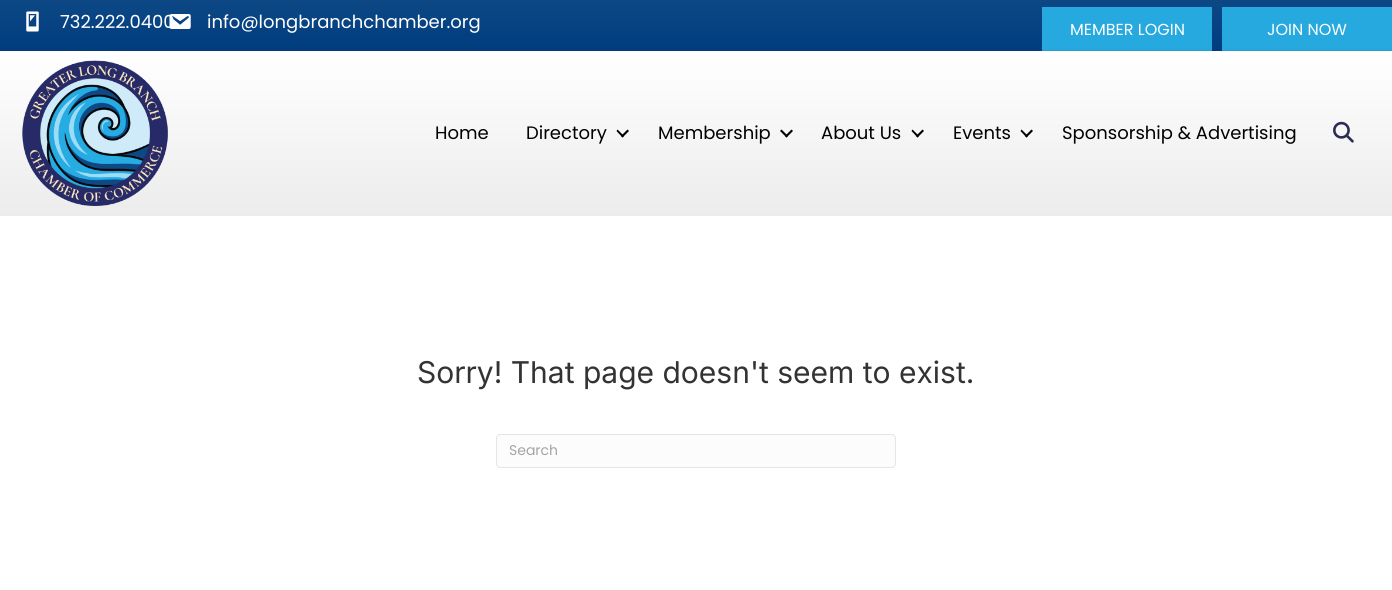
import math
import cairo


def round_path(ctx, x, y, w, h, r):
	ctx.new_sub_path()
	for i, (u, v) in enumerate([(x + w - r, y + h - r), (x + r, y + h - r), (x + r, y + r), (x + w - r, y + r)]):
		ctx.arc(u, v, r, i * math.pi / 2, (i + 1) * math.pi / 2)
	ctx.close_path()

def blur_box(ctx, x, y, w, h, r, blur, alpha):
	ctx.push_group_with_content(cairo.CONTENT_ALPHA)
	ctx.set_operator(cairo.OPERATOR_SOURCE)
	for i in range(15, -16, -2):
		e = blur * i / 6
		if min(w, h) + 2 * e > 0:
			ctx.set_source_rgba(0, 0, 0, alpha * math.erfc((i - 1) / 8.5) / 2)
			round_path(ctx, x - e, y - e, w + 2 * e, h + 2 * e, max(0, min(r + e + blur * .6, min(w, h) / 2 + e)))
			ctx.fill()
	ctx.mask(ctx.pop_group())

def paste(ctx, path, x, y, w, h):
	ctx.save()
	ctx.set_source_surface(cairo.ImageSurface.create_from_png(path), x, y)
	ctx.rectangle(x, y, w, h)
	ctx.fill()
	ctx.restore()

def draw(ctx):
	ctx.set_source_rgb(1, 1, 1)
	ctx.paint()
	gradient = cairo.LinearGradient(696, 0, 696, 51)
	gradient.add_color_stop_rgba(0, 0.051, 0.282, 0.522, 1)
	gradient.add_color_stop_rgba(1, 0, 0.239, 0.498, 1)
	ctx.set_source(gradient)
	ctx.rectangle(0, 0, 1392, 51)
	ctx.fill()
	gradient = cairo.LinearGradient(696, 0, 696, 51)
	gradient.add_color_stop_rgba(0, 0.145, 0.663, 0.875, 1)
	gradient.add_color_stop_rgba(1, 0.145, 0.663, 0.875, 1)
	ctx.set_source(gradient)
	ctx.rectangle(1222, 7, 170, 44)
	ctx.fill()
	ctx.rectangle(1042, 7, 170, 44)
	ctx.fill()
	paste(ctx, 'media/1.png', 26, 11, 13, 21)
	ctx.select_font_face('Poppins')
	ctx.set_font_size(18)
	ctx.set_source_rgb(1, 1, 1)
	ctx.move_to(60, 28)
	ctx.show_text('732.222.0400')
	paste(ctx, 'media/2.png', 169, 14, 22, 15)
	ctx.move_to(207, 28)
	ctx.show_text('info@longbranchchamber.org')
	ctx.set_font_size(16)
	ctx.move_to(1070, 35)
	ctx.show_text('MEMBER LOGIN')
	ctx.move_to(1267, 35)
	ctx.show_text('JOIN NOW')
	ctx.set_source_rgb(0.2, 0.2, 0.2)
	blur_box(ctx, 1, 52, 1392, 165, 0, 1.5, 0.6)
	gradient = cairo.LinearGradient(696, 51, 696, 216)
	gradient.add_color_stop_rgba(0, 1, 1, 1, 1)
	gradient.add_color_stop_rgba(1, 0.925, 0.925, 0.929, 1)
	ctx.set_source(gradient)
	ctx.rectangle(0, 51, 1392, 165)
	ctx.fill()
	paste(ctx, 'media/3.png', 22, 60, 146, 146)
	ctx.set_font_size(18)
	ctx.set_source_rgb(0, 0, 0)
	ctx.move_to(435, 139)
	ctx.show_text('Home')
	ctx.move_to(526, 139)
	ctx.show_text('Directory')
	ctx.new_path()
	ctx.move_to(627.5, 129.5)
	ctx.line_to(629, 131)
	ctx.line_to(622.5, 137.5)
	ctx.line_to(621, 136)
	ctx.close_path()
	ctx.fill()
	ctx.new_path()
	ctx.move_to(617.5, 129.5)
	ctx.line_to(624, 136)
	ctx.line_to(622.5, 137.5)
	ctx.line_to(616.5, 131)
	ctx.close_path()
	ctx.fill()
	ctx.move_to(658, 139)
	ctx.show_text('Membership')
	ctx.new_path()
	ctx.move_to(791.5, 129.5)
	ctx.line_to(793, 131)
	ctx.line_to(786.5, 137.5)
	ctx.line_to(785, 136)
	ctx.close_path()
	ctx.fill()
	ctx.new_path()
	ctx.move_to(781.5, 129.5)
	ctx.line_to(788, 136)
	ctx.line_to(786.5, 137.5)
	ctx.line_to(780, 131)
	ctx.close_path()
	ctx.fill()
	ctx.move_to(821, 139)
	ctx.show_text('About Us')
	ctx.new_path()
	ctx.move_to(922.5, 129.5)
	ctx.line_to(924, 131)
	ctx.line_to(917.5, 137.5)
	ctx.line_to(916, 136)
	ctx.close_path()
	ctx.fill()
	ctx.new_path()
	ctx.move_to(912.5, 129.5)
	ctx.line_to(919, 136)
	ctx.line_to(917.5, 137.5)
	ctx.line_to(911.5, 131)
	ctx.close_path()
	ctx.fill()
	ctx.move_to(953, 139)
	ctx.show_text('Events')
	ctx.new_path()
	ctx.move_to(1031.5, 129.5)
	ctx.line_to(1033, 131)
	ctx.line_to(1026.5, 137.5)
	ctx.line_to(1025, 136)
	ctx.close_path()
	ctx.fill()
	ctx.new_path()
	ctx.move_to(1021.5, 129.5)
	ctx.line_to(1028, 136)
	ctx.line_to(1026.5, 137.5)
	ctx.line_to(1020.5, 131)
	ctx.close_path()
	ctx.fill()
	ctx.move_to(1062, 139)
	ctx.show_text('Sponsorship & Advertising')
	paste(ctx, 'media/4.png', 1333, 121, 21, 22)
	ctx.set_source_rgb(1, 1, 1)
	ctx.rectangle(0, 216, 1392, 4)
	ctx.fill()
	ctx.select_font_face('Inter')
	ctx.set_font_size(30)
	ctx.set_source_rgb(0.2, 0.2, 0.2)
	ctx.move_to(417, 383)
	ctx.show_text('Sorry! That page doesn\'t seem to exist.')
	ctx.set_source_rgb(0.988, 0.988, 0.988)
	round_path(ctx, 496.5, 434.5, 399, 33, 3.5)
	ctx.fill_preserve()
	ctx.set_source_rgb(0.902, 0.902, 0.902)
	ctx.set_line_width(1)
	ctx.stroke()
	ctx.select_font_face('Poppins')
	ctx.set_font_size(14)
	ctx.set_source_rgb(0.647, 0.643, 0.643)
	ctx.move_to(509, 455)
	ctx.show_text('Search')


surface = cairo.ImageSurface(cairo.FORMAT_RGB24, 1392, 590)
ctx = cairo.Context(surface)
options = cairo.FontOptions()
options.set_hint_metrics(cairo.HINT_METRICS_OFF)
options.set_hint_style(cairo.HINT_STYLE_NONE)
ctx.set_font_options(options)
ctx.set_miter_limit(4)
draw(ctx)
surface.write_to_png('image.png')
